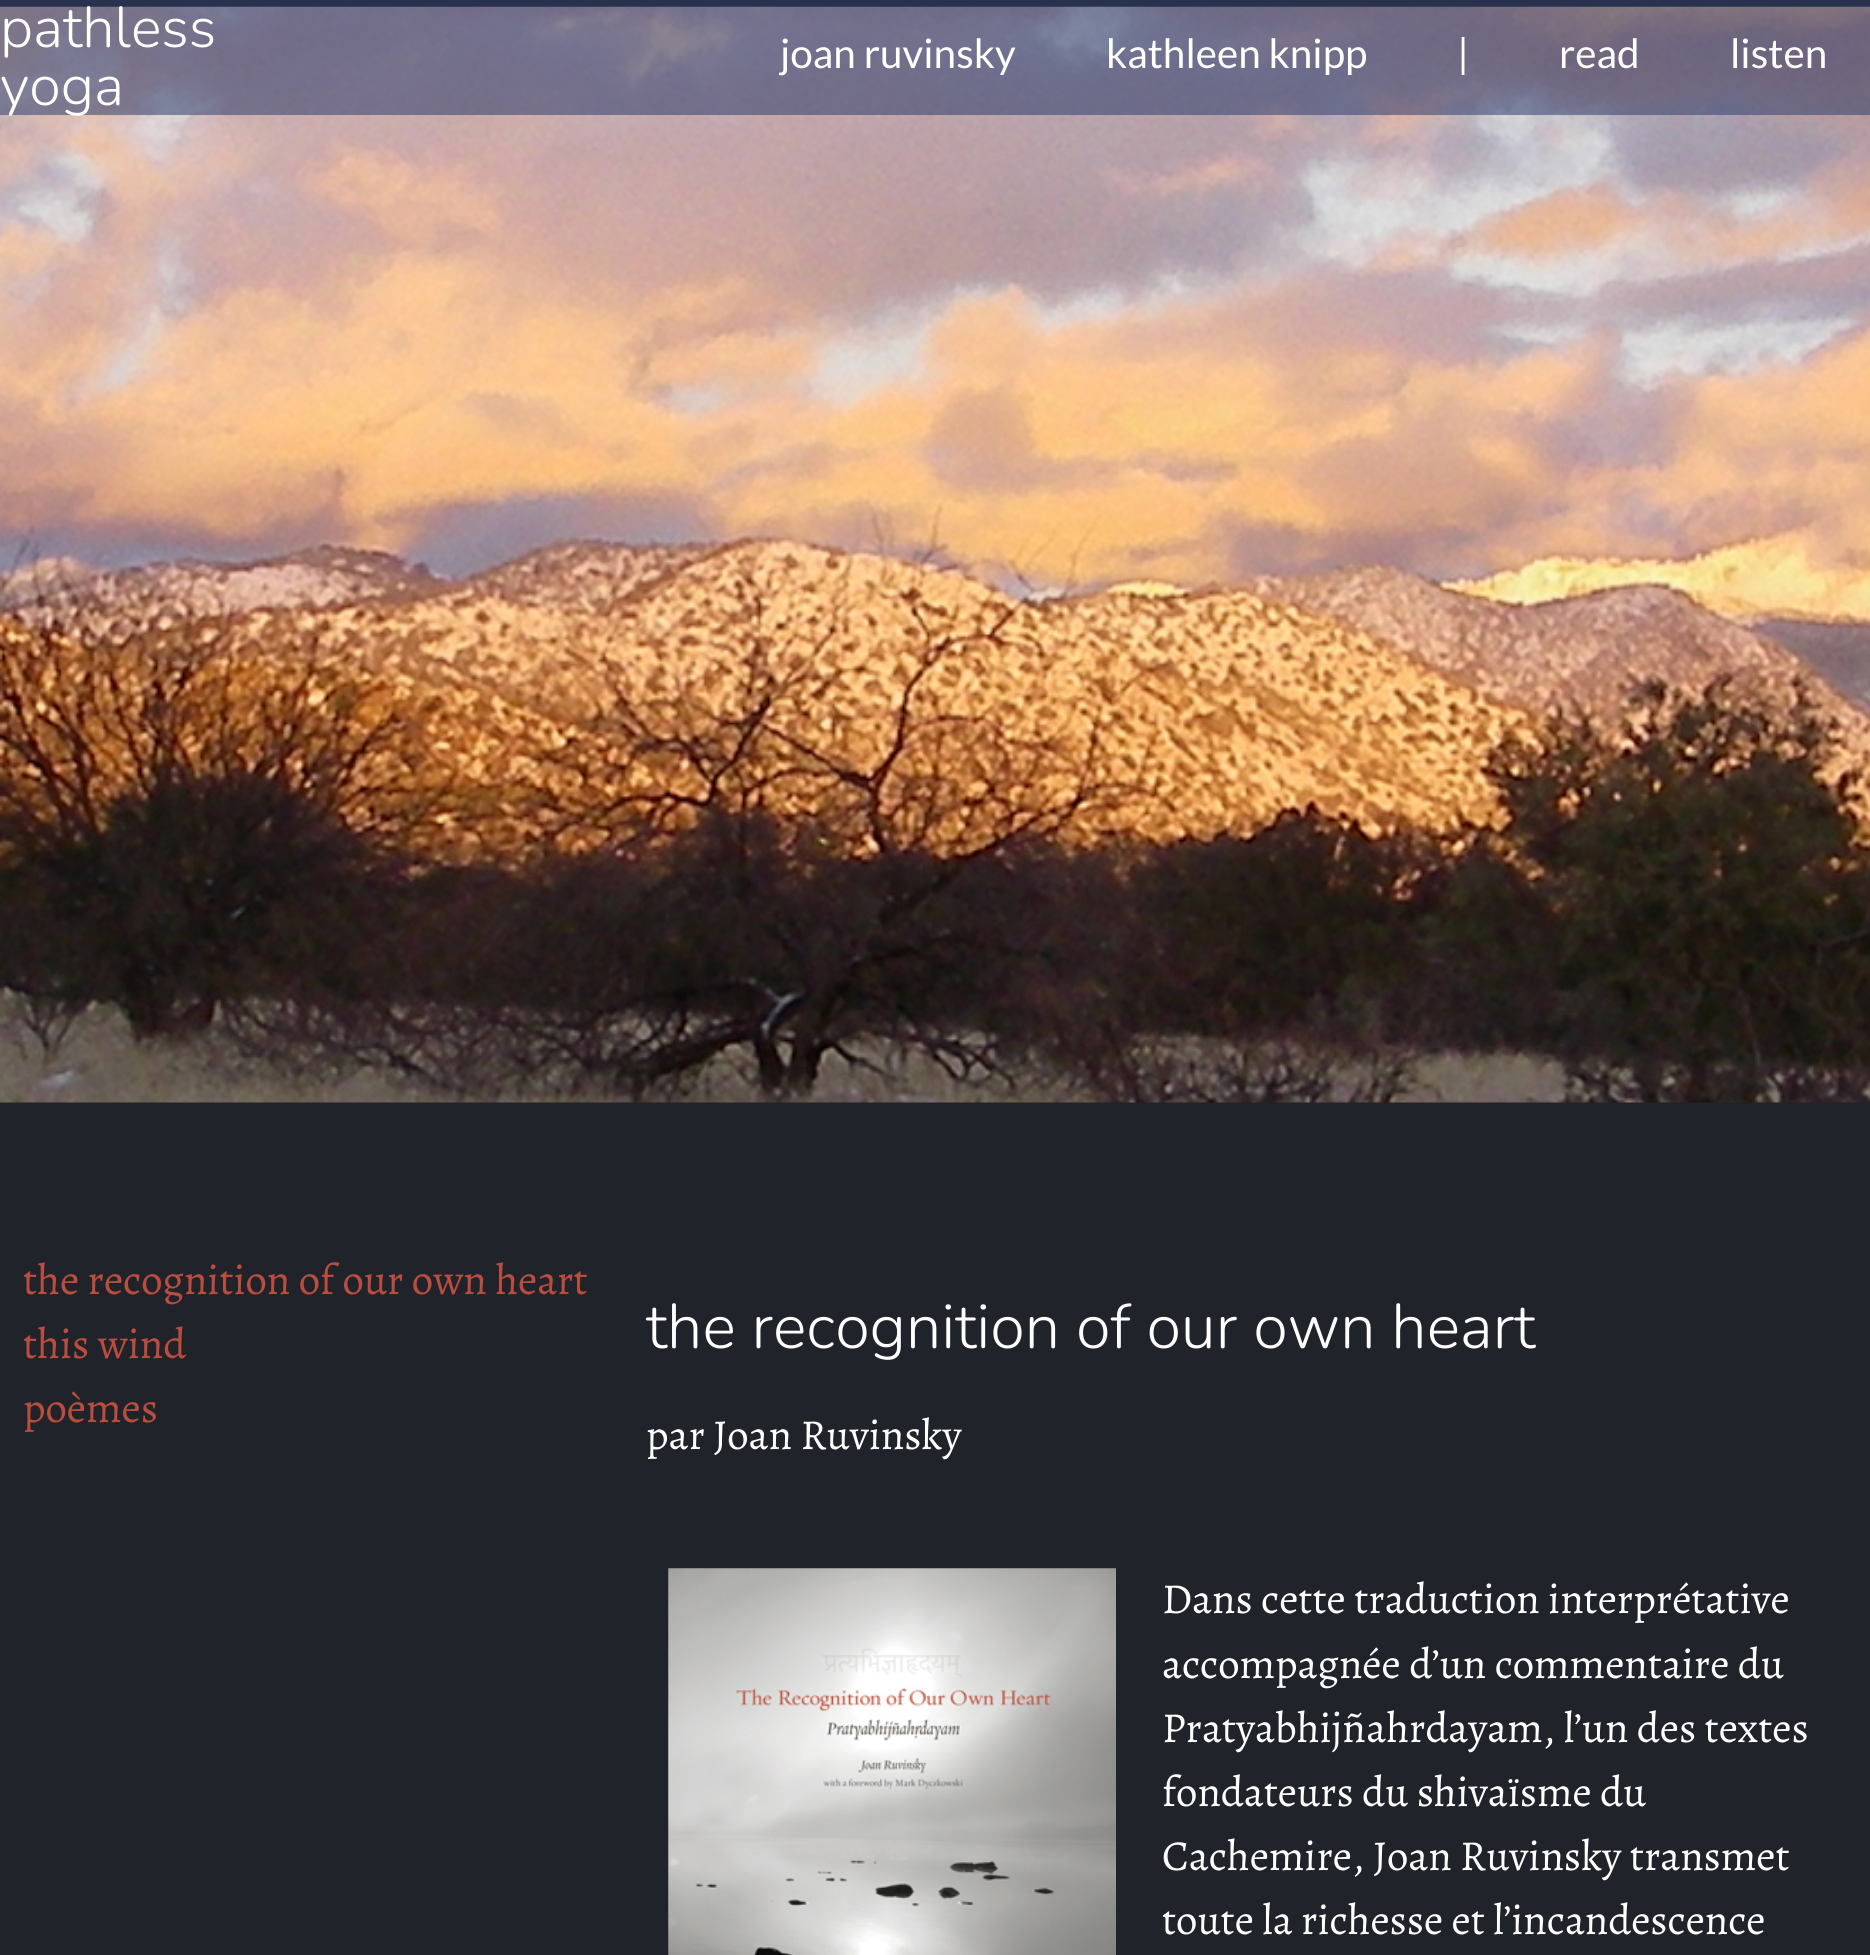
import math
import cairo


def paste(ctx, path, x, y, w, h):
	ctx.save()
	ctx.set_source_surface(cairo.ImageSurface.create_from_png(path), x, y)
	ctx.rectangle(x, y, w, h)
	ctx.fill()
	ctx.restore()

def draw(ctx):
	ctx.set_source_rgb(0.129, 0.137, 0.169)
	ctx.paint()
	paste(ctx, 'media/1.png', 0, 6, 1870, 1097)
	ctx.set_source_rgba(0.188, 0.243, 0.42, 0.54)
	ctx.rectangle(0, 0, 1870, 115)
	ctx.fill()
	ctx.select_font_face('Nunito Light')
	ctx.set_font_size(57.5)
	ctx.set_source_rgb(1, 1, 1)
	ctx.move_to(0, 47)
	ctx.show_text('pathless')
	ctx.move_to(0, 105)
	ctx.show_text('yoga')
	ctx.select_font_face('Lato')
	ctx.set_font_size(40.5)
	for x, y, s in [
		(780, 68, 'joan ruvinsky'),
		(1106, 68, 'kathleen knipp'),
		(1457, 68, '|'),
		(1559, 68, 'read'),
		(1730, 68, 'listen'),
	]:
		ctx.move_to(x, y)
		ctx.show_text(s)
	ctx.select_font_face('Alegreya')
	ctx.set_font_size(42.75)
	ctx.set_source_rgb(0.729, 0.302, 0.243)
	for x, y, s in [
		(23, 1294, 'the recognition of our own heart'),
		(23, 1358, 'this wind'),
		(23, 1422, 'poèmes'),
	]:
		ctx.move_to(x, y)
		ctx.show_text(s)
	ctx.select_font_face('Nunito Light')
	ctx.set_font_size(63)
	ctx.set_source_rgb(1, 1, 1)
	ctx.move_to(646, 1348)
	ctx.show_text('the recognition of our own heart')
	ctx.select_font_face('Alegreya')
	ctx.set_font_size(42.75)
	ctx.move_to(646, 1449)
	ctx.show_text('par Joan Ruvinsky')
	paste(ctx, 'media/2.png', 668, 1568, 448, 387)
	for x, y, s in [
		(1162, 1613, 'Dans cette traduction interprétative'),
		(1162, 1678, 'accompagnée d’un commentaire du'),
		(1162, 1742, 'Pratyabhijñahrdayam, l’un des textes'),
		(1162, 1806, 'fondateurs du shivaïsme du'),
		(1162, 1870, 'Cachemire, Joan Ruvinsky transmet'),
		(1162, 1934, 'toute la richesse et l’incandescence'),
	]:
		ctx.move_to(x, y)
		ctx.show_text(s)


surface = cairo.ImageSurface(cairo.FORMAT_RGB24, 1870, 1955)
ctx = cairo.Context(surface)
options = cairo.FontOptions()
options.set_hint_metrics(cairo.HINT_METRICS_OFF)
options.set_hint_style(cairo.HINT_STYLE_NONE)
ctx.set_font_options(options)
ctx.set_miter_limit(4)
draw(ctx)
surface.write_to_png('image.png')
